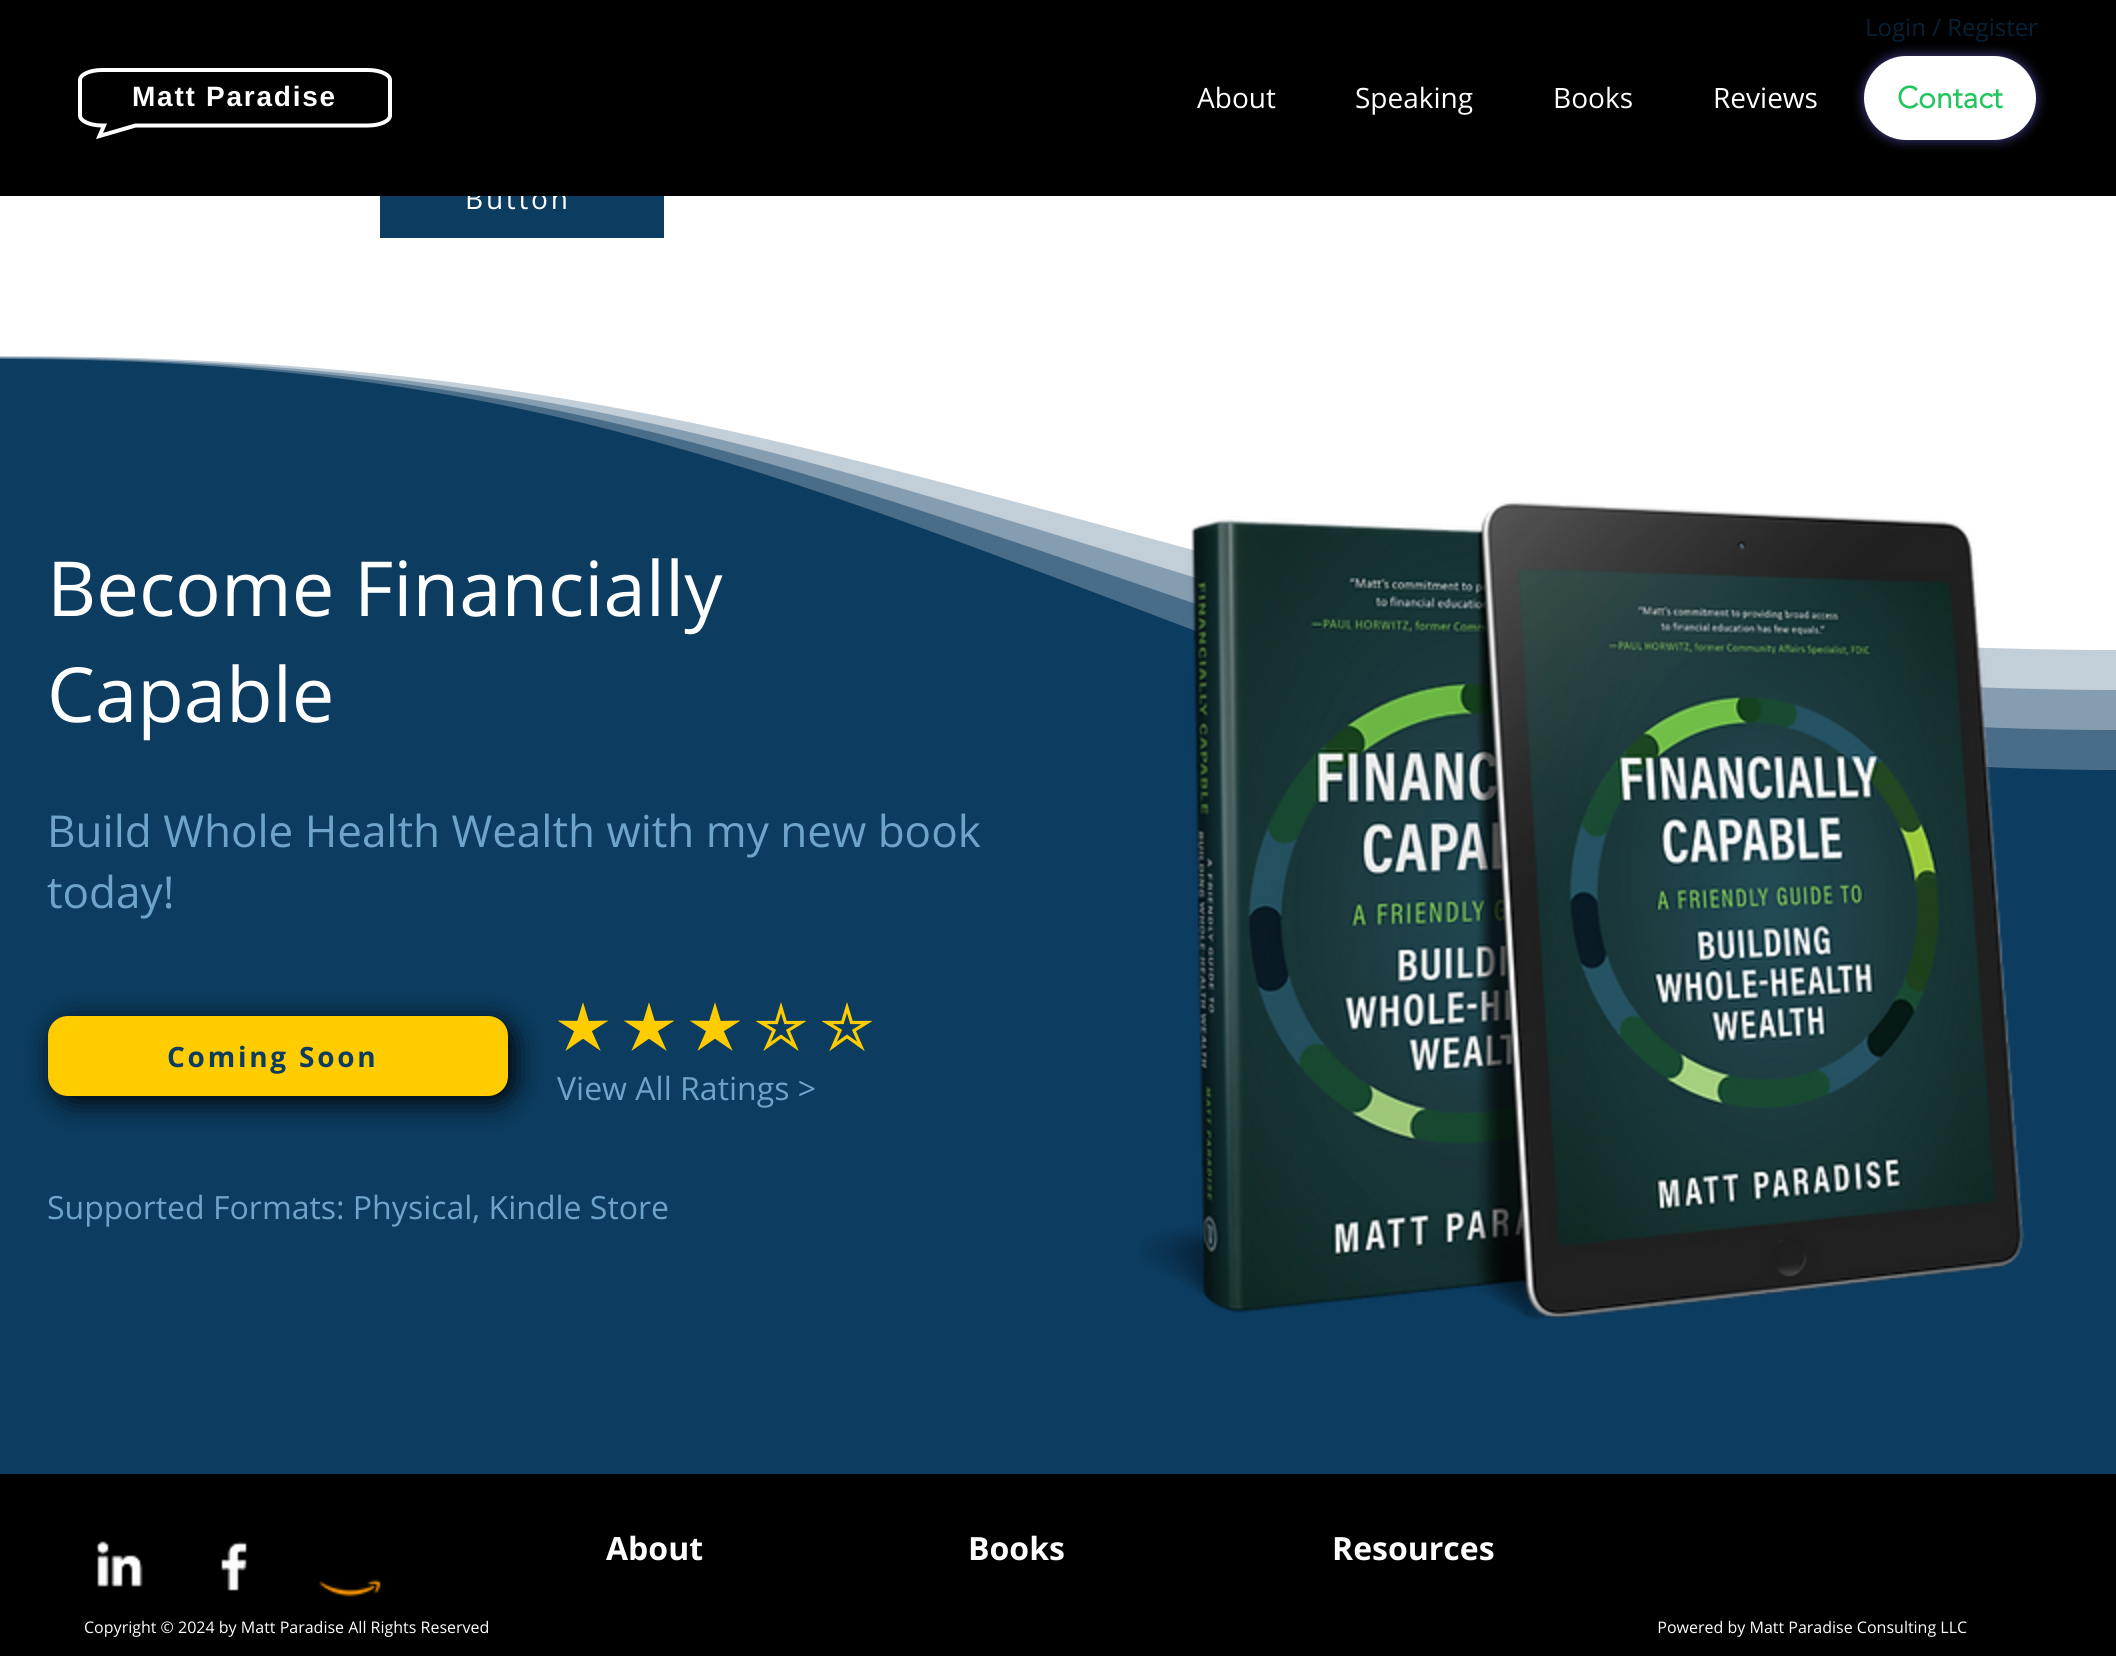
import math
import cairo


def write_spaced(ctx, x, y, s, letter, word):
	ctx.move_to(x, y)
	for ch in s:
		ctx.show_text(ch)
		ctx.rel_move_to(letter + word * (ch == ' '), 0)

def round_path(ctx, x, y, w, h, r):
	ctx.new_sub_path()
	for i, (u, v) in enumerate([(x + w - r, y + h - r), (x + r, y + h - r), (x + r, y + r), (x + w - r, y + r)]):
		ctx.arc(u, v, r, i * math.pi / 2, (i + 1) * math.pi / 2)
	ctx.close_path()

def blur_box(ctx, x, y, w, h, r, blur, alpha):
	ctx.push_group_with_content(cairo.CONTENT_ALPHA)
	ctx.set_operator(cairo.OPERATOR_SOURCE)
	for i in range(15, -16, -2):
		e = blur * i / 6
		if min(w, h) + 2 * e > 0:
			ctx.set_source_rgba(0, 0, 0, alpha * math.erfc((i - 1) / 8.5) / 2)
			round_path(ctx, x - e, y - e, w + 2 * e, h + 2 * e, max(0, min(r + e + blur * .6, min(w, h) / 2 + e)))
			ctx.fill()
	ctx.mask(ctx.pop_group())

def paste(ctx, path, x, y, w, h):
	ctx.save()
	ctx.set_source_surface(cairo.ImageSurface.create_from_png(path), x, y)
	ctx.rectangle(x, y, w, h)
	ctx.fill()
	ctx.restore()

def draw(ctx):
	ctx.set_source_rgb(1, 1, 1)
	ctx.paint()
	ctx.set_source_rgb(0.047, 0.235, 0.376)
	ctx.rectangle(380, 196, 284, 42)
	ctx.fill()
	ctx.select_font_face('Open Sans')
	ctx.set_font_size(28)
	ctx.set_source_rgb(1, 1, 1)
	write_spaced(ctx, 465, 209, 'Button', 2.75, 0)
	ctx.set_source_rgb(0, 0, 0)
	ctx.rectangle(0, 0, 2116, 196)
	ctx.fill()
	ctx.set_font_size(24)
	ctx.set_source_rgb(0.024, 0.129, 0.204)
	ctx.move_to(1865, 36)
	ctx.show_text('Login / Register')
	ctx.new_path()
	ctx.move_to(102, 70)
	ctx.line_to(368, 70)
	ctx.curve_to(380, 70, 390, 74.5, 390, 80)
	ctx.line_to(390, 115.5)
	ctx.curve_to(390, 121, 380, 125.5, 368, 125.5)
	ctx.line_to(135.5, 125.5)
	ctx.line_to(99.5, 136)
	ctx.line_to(104, 125.5)
	ctx.line_to(102, 125.5)
	ctx.curve_to(90, 125.5, 80, 121, 80, 115.5)
	ctx.line_to(80, 80)
	ctx.curve_to(80, 74.5, 90, 70, 102, 70)
	ctx.close_path()
	ctx.set_source_rgb(1, 1, 1)
	ctx.set_line_width(4)
	ctx.stroke()
	ctx.select_font_face('Liberation Sans', cairo.FONT_SLANT_NORMAL, cairo.FONT_WEIGHT_BOLD)
	ctx.set_font_size(28)
	write_spaced(ctx, 132, 106, 'Matt Paradise', 1.75, 0)
	ctx.select_font_face('Open Sans')
	for x, y, s in [
		(1197, 108, 'About'),
		(1355, 108, 'Speaking'),
		(1553, 108, 'Books'),
		(1713, 108, 'Reviews'),
	]:
		ctx.move_to(x, y)
		ctx.show_text(s)
	ctx.set_source_rgb(0.373, 0.357, 0.804)
	blur_box(ctx, 1864, 56, 172, 84, 42, 6, 0.7)
	ctx.set_source_rgb(1, 1, 1)
	round_path(ctx, 1864, 56, 172, 84, 42)
	ctx.fill()
	ctx.select_font_face('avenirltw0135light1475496', cairo.FONT_SLANT_NORMAL, cairo.FONT_WEIGHT_BOLD)
	ctx.set_font_size(30)
	ctx.set_source_rgb(0.137, 0.773, 0.373)
	ctx.move_to(1897, 108)
	ctx.show_text('Contact')
	ctx.set_source_rgb(0.047, 0.235, 0.376)
	ctx.rectangle(0, 359, 2116, 1115)
	ctx.fill()
	ctx.set_source_rgb(0.286, 0.427, 0.533)
	ctx.new_path()
	ctx.move_to(0, 350)
	ctx.line_to(0, 359)
	ctx.curve_to(502, 359, 761, 466, 1193, 630)
	ctx.curve_to(1576, 775, 2116, 770, 2116, 770)
	ctx.line_to(2116, 350)
	ctx.close_path()
	ctx.fill()
	ctx.set_source_rgb(0.522, 0.616, 0.69)
	ctx.new_path()
	ctx.move_to(0, 350)
	ctx.line_to(0, 358)
	ctx.curve_to(502, 358, 761, 455, 1193, 603)
	ctx.curve_to(1576, 735, 2116, 730, 2116, 730)
	ctx.line_to(2116, 350)
	ctx.close_path()
	ctx.fill()
	ctx.set_source_rgb(0.761, 0.808, 0.847)
	ctx.new_path()
	ctx.move_to(0, 350)
	ctx.line_to(0, 357)
	ctx.curve_to(502, 357, 761, 444, 1193, 577)
	ctx.curve_to(1576, 694, 2116, 690, 2116, 690)
	ctx.line_to(2116, 350)
	ctx.close_path()
	ctx.fill()
	ctx.set_source_rgb(1, 1, 1)
	ctx.new_path()
	ctx.move_to(0, 350)
	ctx.line_to(0, 356)
	ctx.curve_to(502, 356, 761, 433, 1193, 550)
	ctx.curve_to(1576, 654, 2116, 650, 2116, 650)
	ctx.line_to(2116, 350)
	ctx.close_path()
	ctx.fill()
	ctx.select_font_face('Open Sans')
	ctx.set_font_size(76)
	ctx.move_to(47, 616)
	ctx.show_text('Become Financially')
	ctx.move_to(47, 722)
	ctx.show_text('Capable')
	ctx.set_font_size(44)
	ctx.set_source_rgb(0.431, 0.643, 0.792)
	ctx.move_to(47, 847)
	ctx.show_text('Build Whole Health Wealth with my new book')
	ctx.move_to(47, 908)
	ctx.show_text('today!')
	paste(ctx, 'media/1.png', 558, 1002, 50, 49)
	paste(ctx, 'media/1.png', 624, 1002, 50, 49)
	paste(ctx, 'media/1.png', 690, 1002, 50, 49)
	ctx.save()
	ctx.rectangle(756, 1002, 50, 50)
	ctx.clip()
	ctx.new_path()
	ctx.move_to(781, 1007.5)
	ctx.line_to(776.5, 1022.5)
	ctx.line_to(761, 1022.5)
	ctx.line_to(774, 1030.5)
	ctx.line_to(767, 1046.5)
	ctx.line_to(781, 1036.5)
	ctx.line_to(795, 1046.5)
	ctx.line_to(788, 1030.5)
	ctx.line_to(801, 1022.5)
	ctx.line_to(785.5, 1022.5)
	ctx.close_path()
	ctx.set_source_rgb(1, 0.8, 0)
	ctx.set_line_width(3.2)
	ctx.stroke()
	ctx.restore()
	ctx.save()
	ctx.rectangle(822, 1002, 50, 50)
	ctx.clip()
	ctx.new_path()
	ctx.move_to(847, 1007.5)
	ctx.line_to(842.5, 1022.5)
	ctx.line_to(827, 1022.5)
	ctx.line_to(840, 1030.5)
	ctx.line_to(833, 1046.5)
	ctx.line_to(847, 1036.5)
	ctx.line_to(861, 1046.5)
	ctx.line_to(854, 1030.5)
	ctx.line_to(867, 1022.5)
	ctx.line_to(851.5, 1022.5)
	ctx.close_path()
	ctx.set_source_rgb(1, 0.8, 0)
	ctx.set_line_width(3.2)
	ctx.stroke()
	ctx.restore()
	ctx.set_source_rgb(0, 0, 0)
	blur_box(ctx, 54, 1022, 460, 80, 20, 14, 1)
	ctx.set_source_rgb(1, 0.8, 0)
	round_path(ctx, 48, 1016, 460, 80, 20)
	ctx.fill()
	ctx.select_font_face('Open Sans', cairo.FONT_SLANT_NORMAL, cairo.FONT_WEIGHT_BOLD)
	ctx.set_font_size(28)
	ctx.set_source_rgb(0.047, 0.235, 0.376)
	write_spaced(ctx, 167, 1067, 'Coming Soon', 2.75, 0)
	ctx.select_font_face('Open Sans')
	ctx.set_font_size(32)
	ctx.set_source_rgb(0.431, 0.643, 0.792)
	ctx.move_to(557, 1100)
	ctx.show_text('View All Ratings >')
	ctx.move_to(47, 1219)
	ctx.show_text('Supported Formats: Physical, Kindle Store')
	paste(ctx, 'media/2.png', 1140, 501, 885, 818)
	ctx.set_source_rgb(0, 0, 0)
	ctx.rectangle(0, 1474, 2116, 182)
	ctx.fill()
	paste(ctx, 'media/3.png', 95, 1541, 48, 46)
	paste(ctx, 'media/4.png', 221, 1541, 27, 50)
	paste(ctx, 'media/5.png', 319, 1579, 62, 18)
	ctx.select_font_face('Open Sans', cairo.FONT_SLANT_NORMAL, cairo.FONT_WEIGHT_BOLD)
	ctx.set_source_rgb(1, 1, 1)
	for x, y, s in [
		(606, 1560, 'About'),
		(968, 1560, 'Books'),
		(1332, 1560, 'Resources'),
	]:
		ctx.move_to(x, y)
		ctx.show_text(s)
	ctx.select_font_face('Open Sans')
	ctx.set_font_size(16)
	ctx.move_to(84, 1633)
	ctx.show_text('Copyright © 2024 by Matt Paradise All Rights Reserved                                                                                                                                                                                                                                                                                         Powered by Matt Paradise Consulting LLC')


surface = cairo.ImageSurface(cairo.FORMAT_RGB24, 2116, 1656)
ctx = cairo.Context(surface)
options = cairo.FontOptions()
options.set_hint_metrics(cairo.HINT_METRICS_OFF)
options.set_hint_style(cairo.HINT_STYLE_NONE)
ctx.set_font_options(options)
ctx.set_miter_limit(4)
draw(ctx)
surface.write_to_png('image.png')
